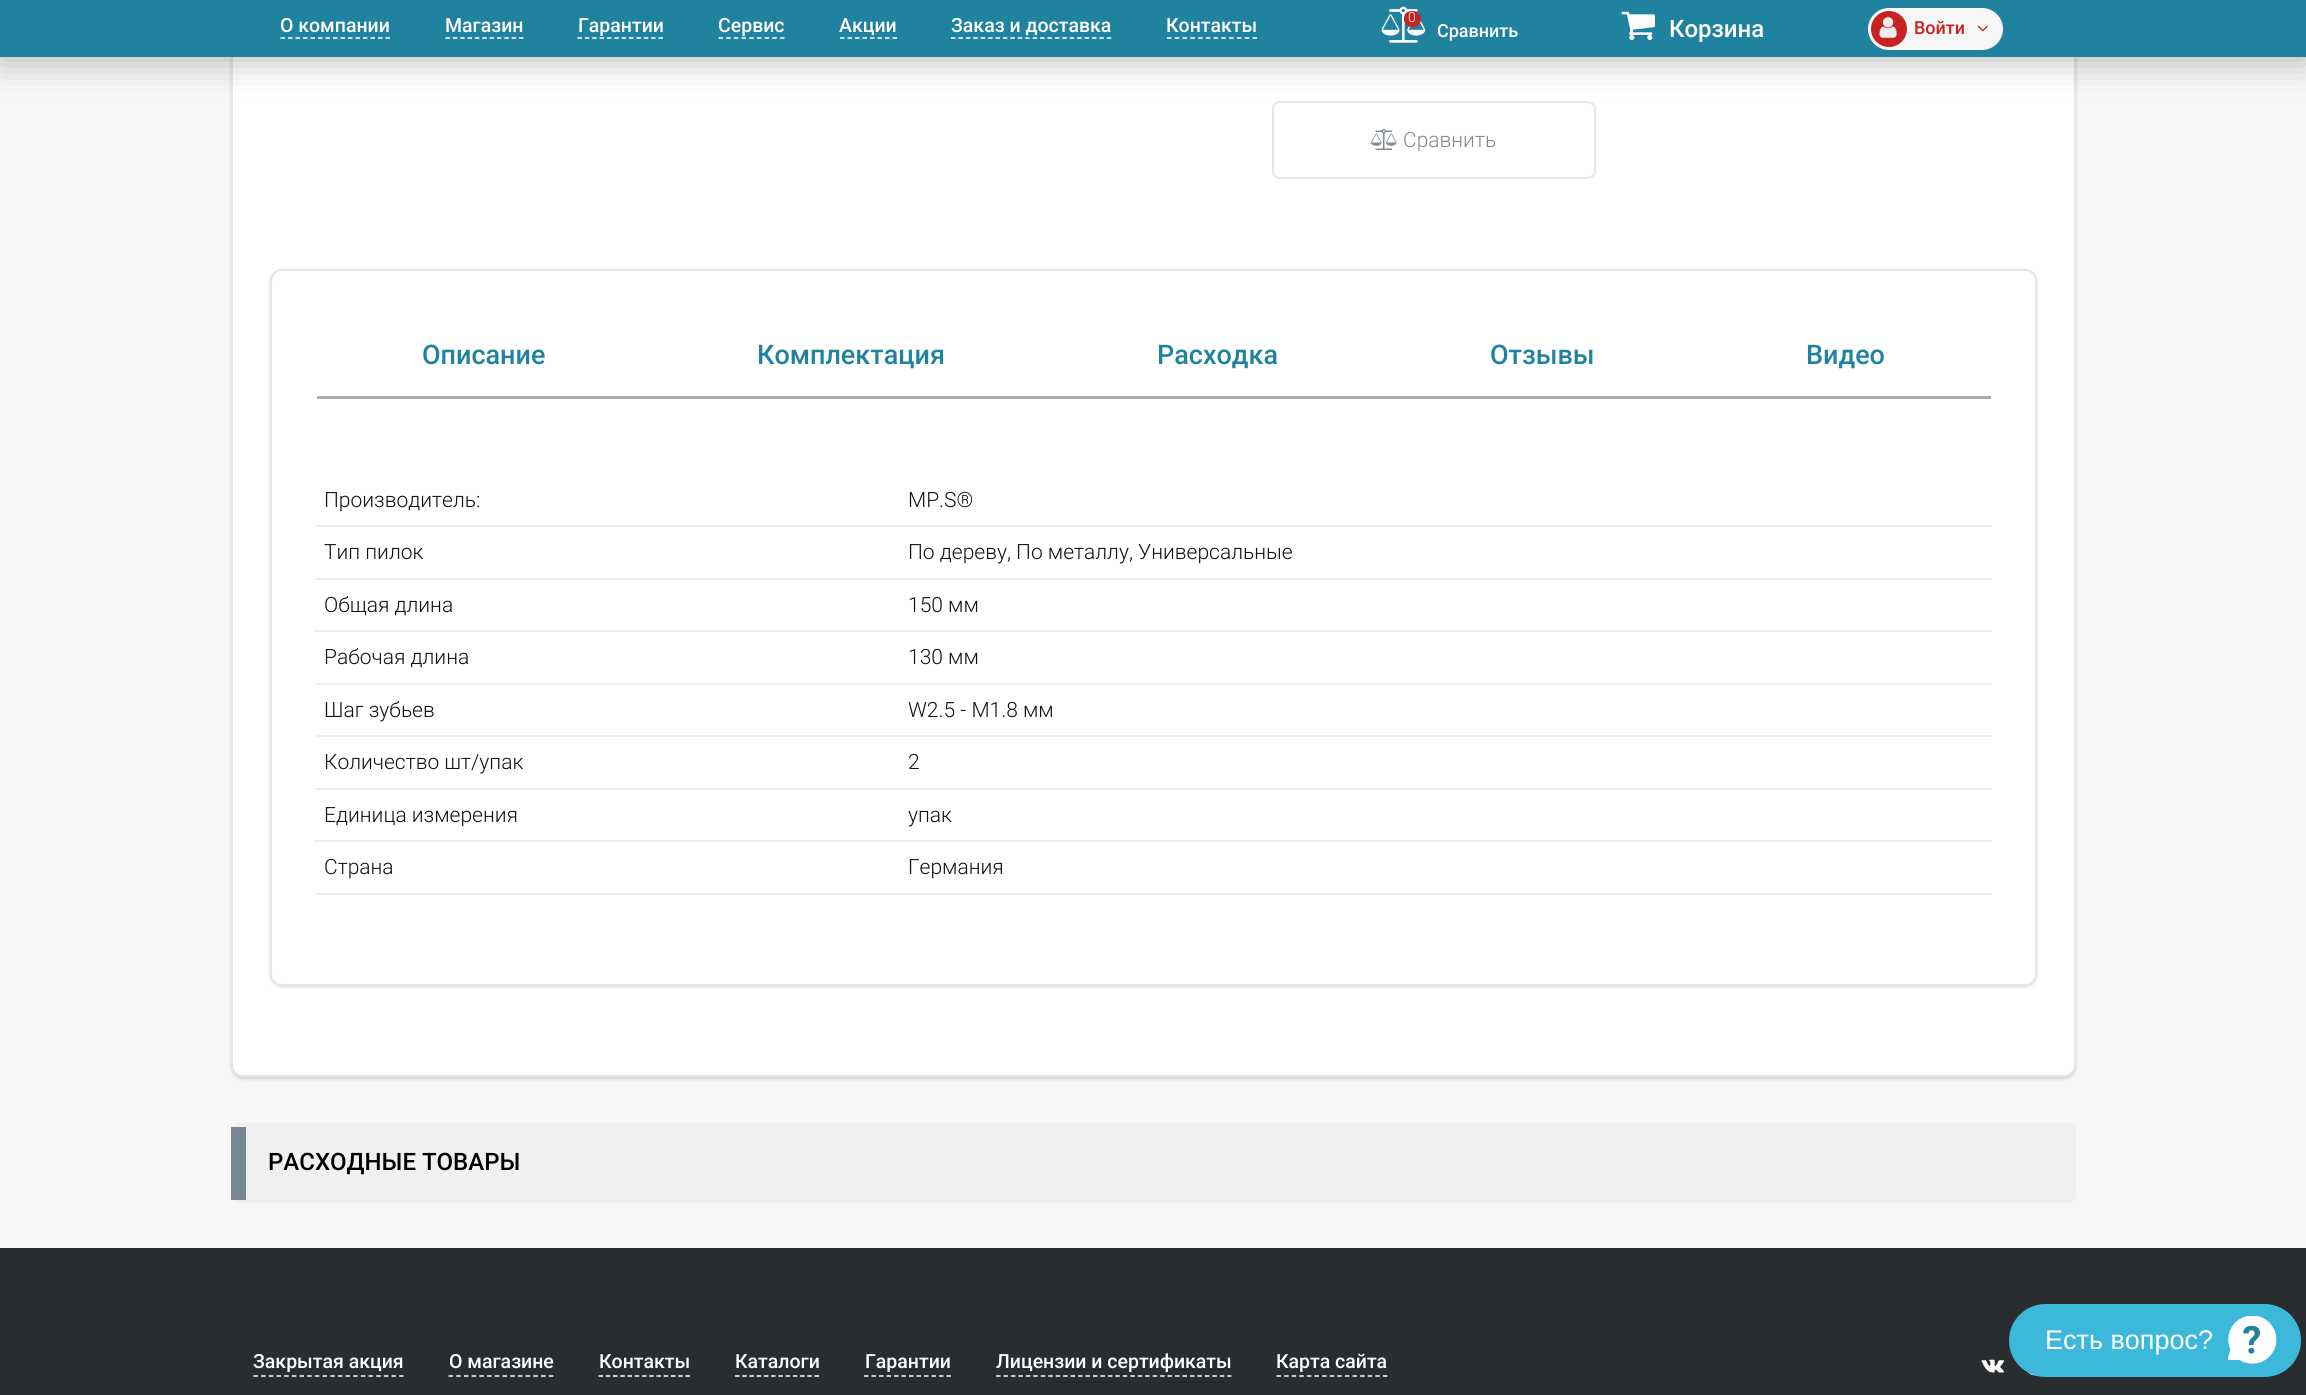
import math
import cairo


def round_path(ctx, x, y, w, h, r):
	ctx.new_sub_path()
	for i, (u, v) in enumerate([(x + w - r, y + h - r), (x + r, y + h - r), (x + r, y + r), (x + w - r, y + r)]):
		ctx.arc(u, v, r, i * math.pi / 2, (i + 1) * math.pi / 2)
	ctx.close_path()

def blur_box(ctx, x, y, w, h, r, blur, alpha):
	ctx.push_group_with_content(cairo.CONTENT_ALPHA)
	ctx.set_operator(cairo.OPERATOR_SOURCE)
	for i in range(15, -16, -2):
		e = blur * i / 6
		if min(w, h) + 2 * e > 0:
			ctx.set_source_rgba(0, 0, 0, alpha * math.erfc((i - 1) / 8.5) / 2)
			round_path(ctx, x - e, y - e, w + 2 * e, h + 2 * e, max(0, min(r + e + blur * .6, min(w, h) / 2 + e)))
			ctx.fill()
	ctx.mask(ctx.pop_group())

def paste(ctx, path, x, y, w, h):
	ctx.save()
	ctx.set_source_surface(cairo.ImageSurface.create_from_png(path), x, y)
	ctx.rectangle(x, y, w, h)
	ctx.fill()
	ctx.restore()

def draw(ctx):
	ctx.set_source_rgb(0.965, 0.965, 0.965)
	ctx.paint()
	ctx.set_source_rgb(0, 0, 0)
	blur_box(ctx, 231, -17, 1845, 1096, 12, 1.5, 0.16)
	ctx.set_source_rgb(1, 1, 1)
	round_path(ctx, 232, -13, 1843, 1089, 11)
	ctx.fill_preserve()
	ctx.set_source_rgb(0.91, 0.898, 0.898)
	ctx.stroke()
	round_path(ctx, 1273, 102, 322, 76, 7)
	ctx.stroke()
	ctx.set_source_rgb(0, 0, 0)
	blur_box(ctx, 0, 2, 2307, 57, 0, 18, 0.3)
	ctx.set_source_rgb(0.122, 0.514, 0.624)
	ctx.rectangle(0, 0, 2306, 57)
	ctx.fill()
	ctx.new_path()
	ctx.move_to(280.5, 38)
	ctx.line_to(390, 38)
	ctx.set_source_rgb(1, 1, 1)
	ctx.set_line_width(1.5)
	ctx.set_dash([4.5, 3])
	ctx.stroke()
	ctx.select_font_face('Roboto Medium')
	ctx.set_font_size(19.5)
	ctx.move_to(280, 32)
	ctx.show_text('О компании')
	ctx.new_path()
	ctx.move_to(445.5, 38)
	ctx.line_to(523.5, 38)
	ctx.set_dash([4.5, 2.85])
	ctx.stroke()
	ctx.move_to(445, 32)
	ctx.show_text('Магазин')
	ctx.new_path()
	ctx.move_to(577.5, 38)
	ctx.line_to(663, 38)
	ctx.set_dash([4.5, 2.86])
	ctx.stroke()
	ctx.move_to(578, 32)
	ctx.show_text('Гарантии')
	ctx.new_path()
	ctx.move_to(718.5, 38)
	ctx.line_to(784.5, 38)
	ctx.set_dash([4.5, 3.18])
	ctx.stroke()
	ctx.move_to(718, 32)
	ctx.show_text('Сервис')
	ctx.new_path()
	ctx.move_to(840, 38)
	ctx.line_to(897, 38)
	ctx.set_dash([4.5, 3])
	ctx.stroke()
	ctx.move_to(839, 32)
	ctx.show_text('Акции')
	ctx.new_path()
	ctx.move_to(951, 38)
	ctx.line_to(1111.5, 38)
	ctx.set_dash([4.5, 2.92])
	ctx.stroke()
	ctx.move_to(951, 32)
	ctx.show_text('Заказ и доставка')
	ctx.new_path()
	ctx.move_to(1167, 38)
	ctx.line_to(1257, 38)
	ctx.set_dash([4.5, 3.27])
	ctx.stroke()
	ctx.move_to(1166, 32)
	ctx.show_text('Контакты')
	paste(ctx, 'media/1.png', 1381, 6, 45, 37)
	ctx.set_source_rgb(0.784, 0.137, 0.137)
	round_path(ctx, 1404, 11, 17, 16, 8)
	ctx.fill()
	ctx.select_font_face('Roboto Light')
	ctx.set_font_size(14)
	ctx.set_source_rgb(1, 1, 1)
	ctx.move_to(1408, 22)
	ctx.show_text('0')
	ctx.select_font_face('Roboto Medium')
	ctx.set_font_size(18)
	ctx.move_to(1437, 37)
	ctx.show_text('Сравнить')
	paste(ctx, 'media/2.png', 1621, 11, 34, 30)
	ctx.set_font_size(24)
	ctx.move_to(1669, 37)
	ctx.show_text('Корзина')
	ctx.set_source_rgb(0.965, 0.965, 0.965)
	round_path(ctx, 1869.5, 9.5, 132, 39, 19.5)
	ctx.fill_preserve()
	ctx.set_line_width(3)
	ctx.set_dash([])
	ctx.stroke()
	ctx.set_source_rgb(0.784, 0.137, 0.137)
	ctx.arc(1889, 29, 18, 0, 2 * math.pi)
	ctx.fill()
	paste(ctx, 'media/3.png', 1879, 17, 18, 21)
	ctx.set_font_size(18)
	ctx.move_to(1914, 34)
	ctx.show_text('Войти')
	paste(ctx, 'media/4.png', 1977, 25, 11, 7)
	paste(ctx, 'media/5.png', 1371, 129, 26, 21)
	ctx.select_font_face('Roboto Light')
	ctx.set_font_size(21)
	ctx.set_source_rgb(0.506, 0.541, 0.569)
	ctx.move_to(1403, 147)
	ctx.show_text('Сравнить')
	ctx.set_source_rgb(0, 0, 0)
	blur_box(ctx, 270, 270, 1767, 717, 12, 1.5, 0.16)
	ctx.set_source_rgb(1, 1, 1)
	round_path(ctx, 271, 270, 1765, 715, 11)
	ctx.fill_preserve()
	ctx.set_source_rgb(0.91, 0.898, 0.898)
	ctx.set_line_width(2)
	ctx.stroke()
	ctx.set_source_rgb(0.675, 0.675, 0.675)
	ctx.rectangle(317, 396, 1674, 3)
	ctx.fill()
	ctx.select_font_face('Roboto Medium')
	ctx.set_font_size(27)
	ctx.set_source_rgb(0.122, 0.514, 0.624)
	for x, y, s in [
		(422, 364, 'Описание'),
		(757, 364, 'Комплектация'),
		(1157, 364, 'Расходка'),
		(1490, 364, 'Отзывы'),
		(1806, 364, 'Видео'),
	]:
		ctx.move_to(x, y)
		ctx.show_text(s)
	ctx.select_font_face('Roboto Light')
	ctx.set_font_size(21)
	ctx.set_source_rgb(0.067, 0.067, 0.067)
	ctx.move_to(324, 507)
	ctx.show_text('Производитель:')
	ctx.set_source_rgb(0.925, 0.933, 0.937)
	ctx.rectangle(315, 525, 1677, 2)
	ctx.fill()
	ctx.set_source_rgb(0.067, 0.067, 0.067)
	ctx.move_to(908, 507)
	ctx.show_text('MP.S®')
	ctx.move_to(324, 559)
	ctx.show_text('Тип пилок')
	ctx.set_source_rgb(0.925, 0.933, 0.937)
	ctx.rectangle(315, 578, 1677, 2)
	ctx.fill()
	ctx.set_source_rgb(0.067, 0.067, 0.067)
	ctx.move_to(908, 559)
	ctx.show_text('По дереву, По металлу, Универсальные')
	ctx.move_to(324, 612)
	ctx.show_text('Общая длина')
	ctx.set_source_rgb(0.925, 0.933, 0.937)
	ctx.rectangle(315, 630, 1677, 2)
	ctx.fill()
	ctx.set_source_rgb(0.067, 0.067, 0.067)
	ctx.move_to(908, 612)
	ctx.show_text('150 мм')
	ctx.move_to(324, 664)
	ctx.show_text('Рабочая длина')
	ctx.set_source_rgb(0.925, 0.933, 0.937)
	ctx.rectangle(315, 683, 1677, 2)
	ctx.fill()
	ctx.set_source_rgb(0.067, 0.067, 0.067)
	ctx.move_to(908, 664)
	ctx.show_text('130 мм')
	ctx.move_to(324, 717)
	ctx.show_text('Шаг зубьев')
	ctx.set_source_rgb(0.925, 0.933, 0.937)
	ctx.rectangle(315, 735, 1677, 2)
	ctx.fill()
	ctx.set_source_rgb(0.067, 0.067, 0.067)
	ctx.move_to(908, 717)
	ctx.show_text('W2.5 - M1.8 мм')
	ctx.move_to(324, 769)
	ctx.show_text('Количество шт/упак')
	ctx.set_source_rgb(0.925, 0.933, 0.937)
	ctx.rectangle(315, 788, 1677, 2)
	ctx.fill()
	ctx.set_source_rgb(0.067, 0.067, 0.067)
	ctx.move_to(908, 769)
	ctx.show_text('2')
	ctx.move_to(324, 822)
	ctx.show_text('Единица измерения')
	ctx.set_source_rgb(0.925, 0.933, 0.937)
	ctx.rectangle(315, 840, 1677, 2)
	ctx.fill()
	ctx.set_source_rgb(0.067, 0.067, 0.067)
	ctx.move_to(908, 822)
	ctx.show_text('упак')
	ctx.move_to(324, 874)
	ctx.show_text('Страна')
	ctx.set_source_rgb(0.925, 0.933, 0.937)
	ctx.rectangle(315, 893, 1677, 2)
	ctx.fill()
	ctx.set_source_rgb(0.067, 0.067, 0.067)
	ctx.move_to(908, 874)
	ctx.show_text('Германия')
	ctx.set_source_rgb(0.941, 0.941, 0.941)
	round_path(ctx, 231, 1122, 1845, 81, 8)
	ctx.fill()
	ctx.set_source_rgb(0.463, 0.529, 0.573)
	ctx.rectangle(231, 1127, 15, 73)
	ctx.fill()
	ctx.select_font_face('Roboto Medium')
	ctx.set_font_size(24)
	ctx.set_source_rgb(0, 0, 0)
	ctx.move_to(268, 1170)
	ctx.show_text('РАСХОДНЫЕ ТОВАРЫ')
	ctx.set_source_rgb(0.165, 0.176, 0.188)
	ctx.rectangle(0, 1248, 2306, 147)
	ctx.fill()
	paste(ctx, 'media/8.png', 2027, 1371, 10, 5)
	ctx.set_source_rgb(0.235, 0.722, 0.859)
	round_path(ctx, 2009, 1304, 292, 73, 36.5)
	ctx.fill()
	ctx.select_font_face('Liberation Sans')
	ctx.set_font_size(27)
	ctx.set_source_rgb(1, 1, 1)
	ctx.move_to(2045, 1349)
	ctx.show_text('Есть вопрос?')
	paste(ctx, 'media/6.png', 2228, 1316, 49, 48)
	ctx.new_path()
	ctx.move_to(253.5, 1376)
	ctx.line_to(403.5, 1376)
	ctx.set_line_width(1.5)
	ctx.set_dash([4.5, 3.17])
	ctx.stroke()
	ctx.select_font_face('Roboto Medium')
	ctx.set_font_size(19.5)
	ctx.move_to(253, 1368)
	ctx.show_text('Закрытая акция')
	ctx.new_path()
	ctx.move_to(448.5, 1376)
	ctx.line_to(553.5, 1376)
	ctx.set_dash([4.5, 3.22])
	ctx.stroke()
	ctx.move_to(449, 1368)
	ctx.show_text('О магазине')
	ctx.new_path()
	ctx.move_to(598.5, 1376)
	ctx.line_to(690, 1376)
	ctx.set_dash([4.5, 2.75])
	ctx.stroke()
	ctx.move_to(599, 1368)
	ctx.show_text('Контакты')
	ctx.new_path()
	ctx.move_to(735, 1376)
	ctx.line_to(819, 1376)
	ctx.set_dash([4.5, 2.73])
	ctx.stroke()
	ctx.move_to(735, 1368)
	ctx.show_text('Каталоги')
	ctx.new_path()
	ctx.move_to(864, 1376)
	ctx.line_to(951, 1376)
	ctx.set_dash([4.5, 3])
	ctx.stroke()
	ctx.move_to(865, 1368)
	ctx.show_text('Гарантии')
	ctx.new_path()
	ctx.move_to(996, 1376)
	ctx.line_to(1231.5, 1376)
	ctx.set_dash([4.5, 2.96])
	ctx.stroke()
	ctx.move_to(996, 1368)
	ctx.show_text('Лицензии и сертификаты')
	ctx.new_path()
	ctx.move_to(1276.5, 1376)
	ctx.line_to(1387.5, 1376)
	ctx.set_dash([4.5, 3.1])
	ctx.stroke()
	ctx.move_to(1276, 1368)
	ctx.show_text('Карта сайта')
	paste(ctx, 'media/7.png', 1981, 1359, 23, 14)


surface = cairo.ImageSurface(cairo.FORMAT_RGB24, 2306, 1395)
ctx = cairo.Context(surface)
options = cairo.FontOptions()
options.set_hint_metrics(cairo.HINT_METRICS_OFF)
options.set_hint_style(cairo.HINT_STYLE_NONE)
ctx.set_font_options(options)
ctx.set_miter_limit(4)
draw(ctx)
surface.write_to_png('image.png')
